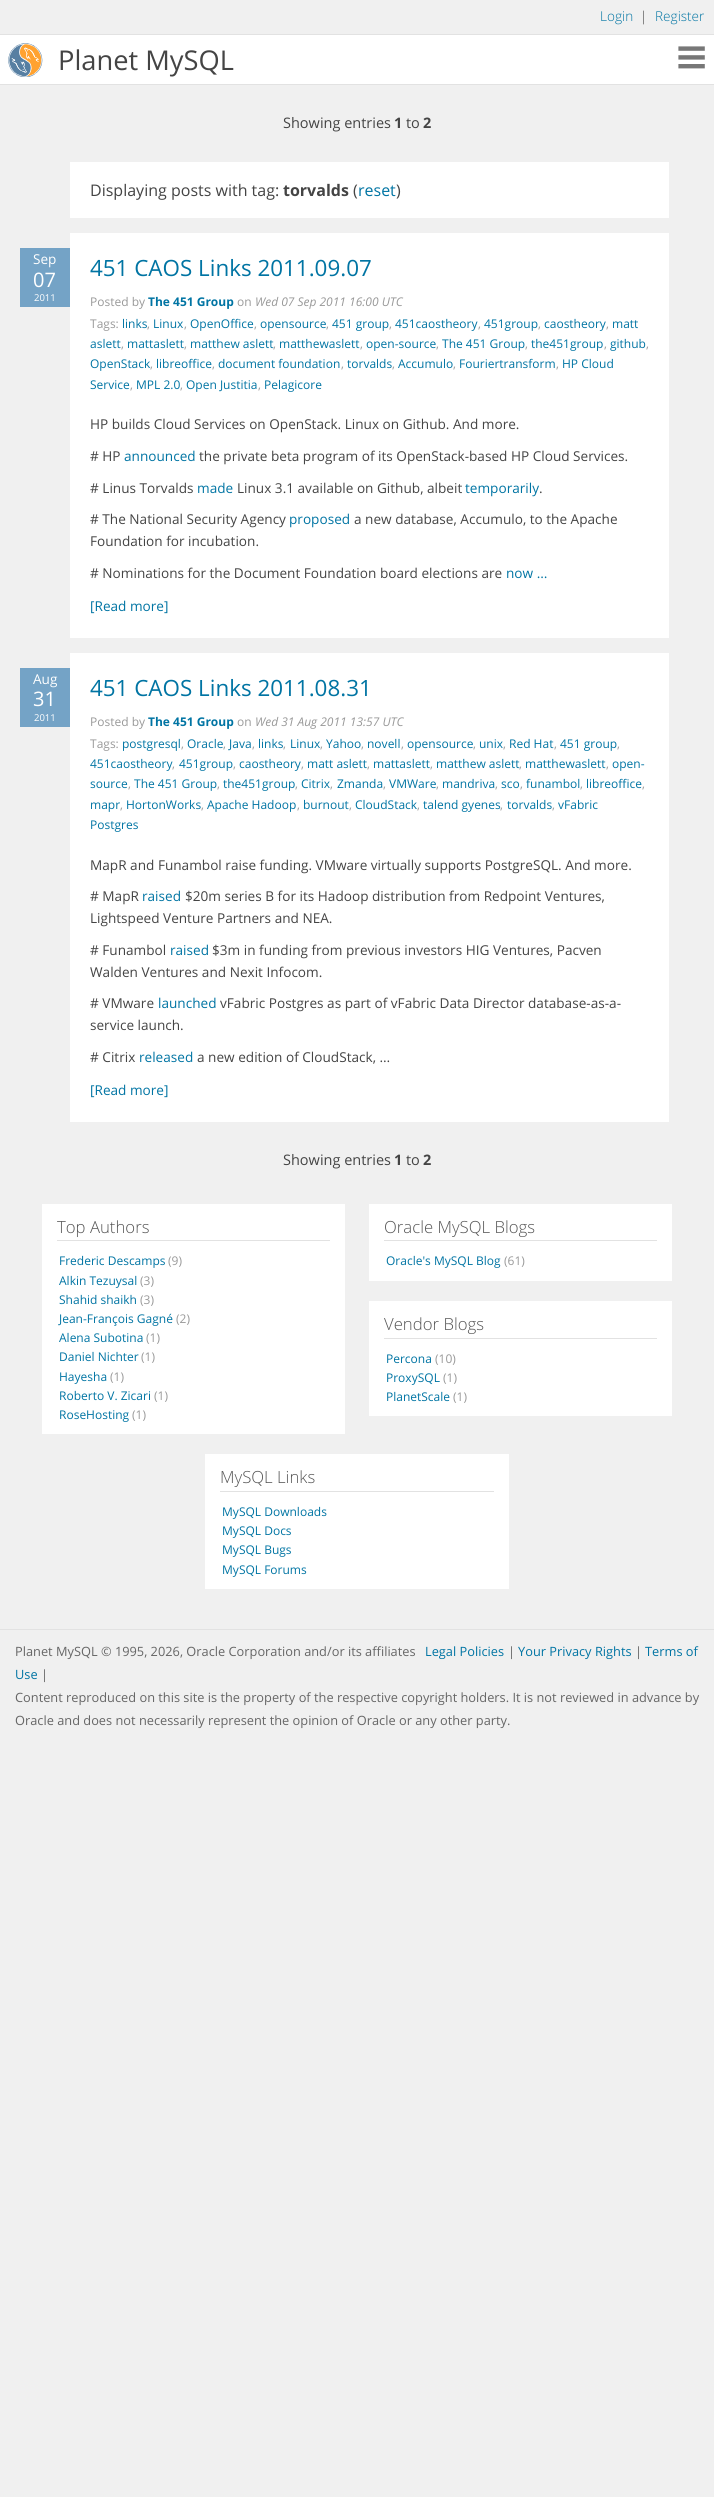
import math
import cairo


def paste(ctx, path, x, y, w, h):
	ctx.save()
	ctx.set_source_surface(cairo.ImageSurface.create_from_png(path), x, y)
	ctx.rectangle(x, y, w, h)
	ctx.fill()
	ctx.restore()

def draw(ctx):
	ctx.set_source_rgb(0.941, 0.941, 0.941)
	ctx.paint()
	ctx.set_source_rgb(0.886, 0.886, 0.886)
	ctx.rectangle(0, 34, 714, 1)
	ctx.fill()
	ctx.select_font_face('Open Sans Light')
	ctx.set_font_size(13.6)
	ctx.set_source_rgb(0, 0.455, 0.639)
	ctx.move_to(600, 21)
	ctx.show_text('Login')
	ctx.set_source_rgb(0.267, 0.267, 0.267)
	ctx.move_to(640, 21)
	ctx.show_text('|')
	ctx.set_source_rgb(0, 0.455, 0.639)
	ctx.move_to(655, 21)
	ctx.show_text('Register')
	ctx.set_source_rgb(1, 1, 1)
	ctx.rectangle(0, 35, 714, 49)
	ctx.fill()
	ctx.set_source_rgb(0.886, 0.886, 0.886)
	ctx.rectangle(0, 84, 714, 1)
	ctx.fill()
	paste(ctx, 'media/1.png', 8, 43, 35, 34)
	ctx.select_font_face('Open Sans')
	ctx.set_font_size(27.25)
	ctx.set_source_rgb(0.267, 0.267, 0.267)
	ctx.move_to(58, 70)
	ctx.show_text('Planet MySQL')
	paste(ctx, 'media/2.png', 678, 46, 27, 23)
	ctx.set_font_size(14.5)
	ctx.move_to(283, 128)
	ctx.show_text('Showing entries')
	ctx.select_font_face('Open Sans', cairo.FONT_SLANT_NORMAL, cairo.FONT_WEIGHT_BOLD)
	ctx.move_to(394, 128)
	ctx.show_text('1')
	ctx.select_font_face('Open Sans')
	ctx.move_to(406, 128)
	ctx.show_text('to')
	ctx.select_font_face('Open Sans', cairo.FONT_SLANT_NORMAL, cairo.FONT_WEIGHT_BOLD)
	ctx.move_to(423, 128)
	ctx.show_text('2')
	ctx.set_source_rgb(1, 1, 1)
	ctx.rectangle(70, 162, 599, 56)
	ctx.fill()
	ctx.select_font_face('Open Sans')
	ctx.set_font_size(16)
	ctx.set_source_rgb(0.267, 0.267, 0.267)
	ctx.move_to(90, 196)
	ctx.show_text('Displaying posts with tag:')
	ctx.select_font_face('Open Sans', cairo.FONT_SLANT_NORMAL, cairo.FONT_WEIGHT_BOLD)
	ctx.move_to(283, 196)
	ctx.show_text('torvalds')
	ctx.select_font_face('Open Sans')
	ctx.move_to(353, 196)
	ctx.show_text('(')
	ctx.set_source_rgb(0, 0.455, 0.639)
	ctx.move_to(358, 196)
	ctx.show_text('reset')
	ctx.set_source_rgb(0.267, 0.267, 0.267)
	ctx.move_to(396, 196)
	ctx.show_text(')')
	ctx.set_source_rgb(1, 1, 1)
	ctx.rectangle(70, 233, 599, 405)
	ctx.fill()
	ctx.set_source_rgb(0.455, 0.639, 0.776)
	ctx.rectangle(20, 248, 50, 59)
	ctx.fill()
	ctx.set_font_size(13.6)
	ctx.set_source_rgb(1, 1, 1)
	ctx.move_to(33, 264)
	ctx.show_text('Sep')
	ctx.set_font_size(20)
	ctx.move_to(33, 287)
	ctx.show_text('07')
	ctx.set_font_size(9.5)
	ctx.move_to(34, 301)
	ctx.show_text('2011')
	ctx.set_font_size(22.4)
	ctx.set_source_rgb(0, 0.455, 0.639)
	ctx.move_to(90, 276)
	ctx.show_text('451 CAOS Links 2011.09.07')
	ctx.set_font_size(12)
	ctx.set_source_rgb(0.6, 0.6, 0.6)
	ctx.move_to(90, 306)
	ctx.show_text('Posted by')
	ctx.select_font_face('Open Sans', cairo.FONT_SLANT_NORMAL, cairo.FONT_WEIGHT_BOLD)
	ctx.set_source_rgb(0, 0.455, 0.639)
	ctx.move_to(148, 306)
	ctx.show_text('The 451 Group')
	ctx.select_font_face('Open Sans')
	ctx.set_source_rgb(0.6, 0.6, 0.6)
	ctx.move_to(237, 306)
	ctx.show_text('on')
	ctx.select_font_face('Open Sans', cairo.FONT_SLANT_ITALIC)
	ctx.move_to(255, 306)
	ctx.show_text('Wed 07 Sep 2011 16:00 UTC')
	ctx.select_font_face('Open Sans')
	ctx.move_to(90, 328)
	ctx.show_text('Tags:')
	ctx.set_source_rgb(0, 0.455, 0.639)
	ctx.move_to(122, 328)
	ctx.show_text('links')
	ctx.set_source_rgb(0.6, 0.6, 0.6)
	ctx.move_to(147, 328)
	ctx.show_text(',')
	ctx.set_source_rgb(0, 0.455, 0.639)
	ctx.move_to(153, 328)
	ctx.show_text('Linux')
	ctx.set_source_rgb(0.6, 0.6, 0.6)
	ctx.move_to(184, 328)
	ctx.show_text(',')
	ctx.set_source_rgb(0, 0.455, 0.639)
	ctx.move_to(190, 328)
	ctx.show_text('OpenOffice')
	ctx.set_source_rgb(0.6, 0.6, 0.6)
	ctx.move_to(254, 328)
	ctx.show_text(',')
	ctx.set_source_rgb(0, 0.455, 0.639)
	ctx.move_to(260, 328)
	ctx.show_text('opensource')
	ctx.set_source_rgb(0.6, 0.6, 0.6)
	ctx.move_to(326, 328)
	ctx.show_text(',')
	ctx.set_source_rgb(0, 0.455, 0.639)
	ctx.move_to(332, 328)
	ctx.show_text('451 group')
	ctx.set_source_rgb(0.6, 0.6, 0.6)
	ctx.move_to(389, 328)
	ctx.show_text(',')
	ctx.set_source_rgb(0, 0.455, 0.639)
	ctx.move_to(395, 328)
	ctx.show_text('451caostheory')
	ctx.set_source_rgb(0.6, 0.6, 0.6)
	ctx.move_to(478, 328)
	ctx.show_text(',')
	ctx.set_source_rgb(0, 0.455, 0.639)
	ctx.move_to(484, 328)
	ctx.show_text('451group')
	ctx.set_source_rgb(0.6, 0.6, 0.6)
	ctx.move_to(538, 328)
	ctx.show_text(',')
	ctx.set_source_rgb(0, 0.455, 0.639)
	ctx.move_to(544, 328)
	ctx.show_text('caostheory')
	ctx.set_source_rgb(0.6, 0.6, 0.6)
	ctx.move_to(606, 328)
	ctx.show_text(',')
	ctx.set_source_rgb(0, 0.455, 0.639)
	ctx.move_to(612, 328)
	ctx.show_text('matt')
	ctx.move_to(90, 348)
	ctx.show_text('aslett')
	ctx.set_source_rgb(0.6, 0.6, 0.6)
	ctx.move_to(121, 348)
	ctx.show_text(',')
	ctx.set_source_rgb(0, 0.455, 0.639)
	ctx.move_to(127, 348)
	ctx.show_text('mattaslett')
	ctx.set_source_rgb(0.6, 0.6, 0.6)
	ctx.move_to(184, 348)
	ctx.show_text(',')
	ctx.set_source_rgb(0, 0.455, 0.639)
	ctx.move_to(190, 348)
	ctx.show_text('matthew aslett')
	ctx.set_source_rgb(0.6, 0.6, 0.6)
	ctx.move_to(273, 348)
	ctx.show_text(',')
	ctx.set_source_rgb(0, 0.455, 0.639)
	ctx.move_to(279, 348)
	ctx.show_text('matthewaslett')
	ctx.set_source_rgb(0.6, 0.6, 0.6)
	ctx.move_to(360, 348)
	ctx.show_text(',')
	ctx.set_source_rgb(0, 0.455, 0.639)
	ctx.move_to(366, 348)
	ctx.show_text('open-source')
	ctx.set_source_rgb(0.6, 0.6, 0.6)
	ctx.move_to(436, 348)
	ctx.show_text(',')
	ctx.set_source_rgb(0, 0.455, 0.639)
	ctx.move_to(442, 348)
	ctx.show_text('The 451 Group')
	ctx.set_source_rgb(0.6, 0.6, 0.6)
	ctx.move_to(525, 348)
	ctx.show_text(',')
	ctx.set_source_rgb(0, 0.455, 0.639)
	ctx.move_to(531, 348)
	ctx.show_text('the451group')
	ctx.set_source_rgb(0.6, 0.6, 0.6)
	ctx.move_to(604, 348)
	ctx.show_text(',')
	ctx.set_source_rgb(0, 0.455, 0.639)
	ctx.move_to(610, 348)
	ctx.show_text('github')
	ctx.set_source_rgb(0.6, 0.6, 0.6)
	ctx.move_to(646, 348)
	ctx.show_text(',')
	ctx.set_source_rgb(0, 0.455, 0.639)
	ctx.move_to(90, 368)
	ctx.show_text('OpenStack')
	ctx.set_source_rgb(0.6, 0.6, 0.6)
	ctx.move_to(150, 368)
	ctx.show_text(',')
	ctx.set_source_rgb(0, 0.455, 0.639)
	ctx.move_to(156, 368)
	ctx.show_text('libreoffice')
	ctx.set_source_rgb(0.6, 0.6, 0.6)
	ctx.move_to(212, 368)
	ctx.show_text(',')
	ctx.set_source_rgb(0, 0.455, 0.639)
	ctx.move_to(218, 368)
	ctx.show_text('document foundation')
	ctx.set_source_rgb(0.6, 0.6, 0.6)
	ctx.move_to(341, 368)
	ctx.show_text(',')
	ctx.set_source_rgb(0, 0.455, 0.639)
	ctx.move_to(347, 368)
	ctx.show_text('torvalds')
	ctx.set_source_rgb(0.6, 0.6, 0.6)
	ctx.move_to(392, 368)
	ctx.show_text(',')
	ctx.set_source_rgb(0, 0.455, 0.639)
	ctx.move_to(398, 368)
	ctx.show_text('Accumulo')
	ctx.set_source_rgb(0.6, 0.6, 0.6)
	ctx.move_to(453, 368)
	ctx.show_text(',')
	ctx.set_source_rgb(0, 0.455, 0.639)
	ctx.move_to(459, 368)
	ctx.show_text('Fouriertransform')
	ctx.set_source_rgb(0.6, 0.6, 0.6)
	ctx.move_to(556, 368)
	ctx.show_text(',')
	ctx.set_source_rgb(0, 0.455, 0.639)
	ctx.move_to(562, 368)
	ctx.show_text('HP Cloud')
	ctx.move_to(90, 389)
	ctx.show_text('Service')
	ctx.set_source_rgb(0.6, 0.6, 0.6)
	ctx.move_to(130, 389)
	ctx.show_text(',')
	ctx.set_source_rgb(0, 0.455, 0.639)
	ctx.move_to(136, 389)
	ctx.show_text('MPL 2.0')
	ctx.set_source_rgb(0.6, 0.6, 0.6)
	ctx.move_to(180, 389)
	ctx.show_text(',')
	ctx.set_source_rgb(0, 0.455, 0.639)
	ctx.move_to(186, 389)
	ctx.show_text('Open Justitia')
	ctx.set_source_rgb(0.6, 0.6, 0.6)
	ctx.move_to(258, 389)
	ctx.show_text(',')
	ctx.set_source_rgb(0, 0.455, 0.639)
	ctx.move_to(264, 389)
	ctx.show_text('Pelagicore')
	ctx.set_font_size(13.6)
	ctx.set_source_rgb(0.267, 0.267, 0.267)
	ctx.move_to(90, 429)
	ctx.show_text('HP builds Cloud Services on OpenStack. Linux on Github. And more.')
	ctx.move_to(90, 461)
	ctx.show_text('# HP')
	ctx.set_source_rgb(0, 0.455, 0.639)
	ctx.move_to(124, 461)
	ctx.show_text('announced')
	ctx.set_source_rgb(0.267, 0.267, 0.267)
	ctx.move_to(199, 461)
	ctx.show_text('the private beta program of its OpenStack-based HP Cloud Services.')
	ctx.move_to(90, 493)
	ctx.show_text('# Linus Torvalds')
	ctx.set_source_rgb(0, 0.455, 0.639)
	ctx.move_to(197, 493)
	ctx.show_text('made')
	ctx.set_source_rgb(0.267, 0.267, 0.267)
	ctx.move_to(237, 493)
	ctx.show_text('Linux 3.1 available on Github, albeit')
	ctx.set_source_rgb(0, 0.455, 0.639)
	ctx.move_to(465, 493)
	ctx.show_text('temporarily')
	ctx.set_source_rgb(0.267, 0.267, 0.267)
	ctx.move_to(539, 493)
	ctx.show_text('.')
	ctx.move_to(90, 524)
	ctx.show_text('# The National Security Agency')
	ctx.set_source_rgb(0, 0.455, 0.639)
	ctx.move_to(289, 524)
	ctx.show_text('proposed')
	ctx.set_source_rgb(0.267, 0.267, 0.267)
	for x, y, s in [
		(354, 524, 'a new database, Accumulo, to the Apache'),
		(90, 546, 'Foundation for incubation.'),
		(90, 578, '# Nominations for the Document Foundation board elections are'),
	]:
		ctx.move_to(x, y)
		ctx.show_text(s)
	ctx.set_source_rgb(0, 0.455, 0.639)
	ctx.move_to(506, 578)
	ctx.show_text('now …')
	ctx.move_to(90, 611)
	ctx.show_text('[Read more]')
	ctx.set_source_rgb(1, 1, 1)
	ctx.rectangle(70, 653, 599, 469)
	ctx.fill()
	ctx.set_source_rgb(0.455, 0.639, 0.776)
	ctx.rectangle(20, 668, 50, 59)
	ctx.fill()
	ctx.set_source_rgb(1, 1, 1)
	ctx.move_to(33, 684)
	ctx.show_text('Aug')
	ctx.set_font_size(20)
	ctx.move_to(33, 706)
	ctx.show_text('31')
	ctx.set_font_size(9.5)
	ctx.move_to(34, 721)
	ctx.show_text('2011')
	ctx.set_font_size(22.4)
	ctx.set_source_rgb(0, 0.455, 0.639)
	ctx.move_to(90, 696)
	ctx.show_text('451 CAOS Links 2011.08.31')
	ctx.set_font_size(12)
	ctx.set_source_rgb(0.6, 0.6, 0.6)
	ctx.move_to(90, 726)
	ctx.show_text('Posted by')
	ctx.select_font_face('Open Sans', cairo.FONT_SLANT_NORMAL, cairo.FONT_WEIGHT_BOLD)
	ctx.set_source_rgb(0, 0.455, 0.639)
	ctx.move_to(148, 726)
	ctx.show_text('The 451 Group')
	ctx.select_font_face('Open Sans')
	ctx.set_source_rgb(0.6, 0.6, 0.6)
	ctx.move_to(237, 726)
	ctx.show_text('on')
	ctx.select_font_face('Open Sans', cairo.FONT_SLANT_ITALIC)
	ctx.move_to(255, 726)
	ctx.show_text('Wed 31 Aug 2011 13:57 UTC')
	ctx.select_font_face('Open Sans')
	ctx.move_to(90, 748)
	ctx.show_text('Tags:')
	ctx.set_source_rgb(0, 0.455, 0.639)
	ctx.move_to(122, 748)
	ctx.show_text('postgresql')
	ctx.set_source_rgb(0.6, 0.6, 0.6)
	ctx.move_to(181, 748)
	ctx.show_text(',')
	ctx.set_source_rgb(0, 0.455, 0.639)
	ctx.move_to(187, 748)
	ctx.show_text('Oracle')
	ctx.set_source_rgb(0.6, 0.6, 0.6)
	ctx.move_to(223, 748)
	ctx.show_text(',')
	ctx.set_source_rgb(0, 0.455, 0.639)
	ctx.move_to(229, 748)
	ctx.show_text('Java')
	ctx.set_source_rgb(0.6, 0.6, 0.6)
	ctx.move_to(252, 748)
	ctx.show_text(',')
	ctx.set_source_rgb(0, 0.455, 0.639)
	ctx.move_to(258, 748)
	ctx.show_text('links')
	ctx.set_source_rgb(0.6, 0.6, 0.6)
	ctx.move_to(283, 748)
	ctx.show_text(',')
	ctx.set_source_rgb(0, 0.455, 0.639)
	ctx.move_to(290, 748)
	ctx.show_text('Linux')
	ctx.set_source_rgb(0.6, 0.6, 0.6)
	ctx.move_to(320, 748)
	ctx.show_text(',')
	ctx.set_source_rgb(0, 0.455, 0.639)
	ctx.move_to(326, 748)
	ctx.show_text('Yahoo')
	ctx.set_source_rgb(0.6, 0.6, 0.6)
	ctx.move_to(361, 748)
	ctx.show_text(',')
	ctx.set_source_rgb(0, 0.455, 0.639)
	ctx.move_to(367, 748)
	ctx.show_text('novell')
	ctx.set_source_rgb(0.6, 0.6, 0.6)
	ctx.move_to(401, 748)
	ctx.show_text(',')
	ctx.set_source_rgb(0, 0.455, 0.639)
	ctx.move_to(407, 748)
	ctx.show_text('opensource')
	ctx.set_source_rgb(0.6, 0.6, 0.6)
	ctx.move_to(473, 748)
	ctx.show_text(',')
	ctx.set_source_rgb(0, 0.455, 0.639)
	ctx.move_to(479, 748)
	ctx.show_text('unix')
	ctx.set_source_rgb(0.6, 0.6, 0.6)
	ctx.move_to(503, 748)
	ctx.show_text(',')
	ctx.set_source_rgb(0, 0.455, 0.639)
	ctx.move_to(509, 748)
	ctx.show_text('Red Hat')
	ctx.set_source_rgb(0.6, 0.6, 0.6)
	ctx.move_to(554, 748)
	ctx.show_text(',')
	ctx.set_source_rgb(0, 0.455, 0.639)
	ctx.move_to(560, 748)
	ctx.show_text('451 group')
	ctx.set_source_rgb(0.6, 0.6, 0.6)
	ctx.move_to(617, 748)
	ctx.show_text(',')
	ctx.set_source_rgb(0, 0.455, 0.639)
	ctx.move_to(90, 768)
	ctx.show_text('451caostheory')
	ctx.set_source_rgb(0.6, 0.6, 0.6)
	ctx.move_to(172, 768)
	ctx.show_text(',')
	ctx.set_source_rgb(0, 0.455, 0.639)
	ctx.move_to(179, 768)
	ctx.show_text('451group')
	ctx.set_source_rgb(0.6, 0.6, 0.6)
	ctx.move_to(233, 768)
	ctx.show_text(',')
	ctx.set_source_rgb(0, 0.455, 0.639)
	ctx.move_to(239, 768)
	ctx.show_text('caostheory')
	ctx.set_source_rgb(0.6, 0.6, 0.6)
	ctx.move_to(301, 768)
	ctx.show_text(',')
	ctx.set_source_rgb(0, 0.455, 0.639)
	ctx.move_to(307, 768)
	ctx.show_text('matt aslett')
	ctx.set_source_rgb(0.6, 0.6, 0.6)
	ctx.move_to(367, 768)
	ctx.show_text(',')
	ctx.set_source_rgb(0, 0.455, 0.639)
	ctx.move_to(373, 768)
	ctx.show_text('mattaslett')
	ctx.set_source_rgb(0.6, 0.6, 0.6)
	ctx.move_to(430, 768)
	ctx.show_text(',')
	ctx.set_source_rgb(0, 0.455, 0.639)
	ctx.move_to(436, 768)
	ctx.show_text('matthew aslett')
	ctx.set_source_rgb(0.6, 0.6, 0.6)
	ctx.move_to(519, 768)
	ctx.show_text(',')
	ctx.set_source_rgb(0, 0.455, 0.639)
	ctx.move_to(525, 768)
	ctx.show_text('matthewaslett')
	ctx.set_source_rgb(0.6, 0.6, 0.6)
	ctx.move_to(606, 768)
	ctx.show_text(',')
	ctx.set_source_rgb(0, 0.455, 0.639)
	ctx.move_to(612, 768)
	ctx.show_text('open-')
	ctx.move_to(90, 788)
	ctx.show_text('source')
	ctx.set_source_rgb(0.6, 0.6, 0.6)
	ctx.move_to(128, 788)
	ctx.show_text(',')
	ctx.set_source_rgb(0, 0.455, 0.639)
	ctx.move_to(134, 788)
	ctx.show_text('The 451 Group')
	ctx.set_source_rgb(0.6, 0.6, 0.6)
	ctx.move_to(217, 788)
	ctx.show_text(',')
	ctx.set_source_rgb(0, 0.455, 0.639)
	ctx.move_to(223, 788)
	ctx.show_text('the451group')
	ctx.set_source_rgb(0.6, 0.6, 0.6)
	ctx.move_to(295, 788)
	ctx.show_text(',')
	ctx.set_source_rgb(0, 0.455, 0.639)
	ctx.move_to(301, 788)
	ctx.show_text('Citrix')
	ctx.set_source_rgb(0.6, 0.6, 0.6)
	ctx.move_to(330, 788)
	ctx.show_text(',')
	ctx.set_source_rgb(0, 0.455, 0.639)
	ctx.move_to(337, 788)
	ctx.show_text('Zmanda')
	ctx.set_source_rgb(0.6, 0.6, 0.6)
	ctx.move_to(383, 788)
	ctx.show_text(',')
	ctx.set_source_rgb(0, 0.455, 0.639)
	ctx.move_to(389, 788)
	ctx.show_text('VMWare')
	ctx.set_source_rgb(0.6, 0.6, 0.6)
	ctx.move_to(436, 788)
	ctx.show_text(',')
	ctx.set_source_rgb(0, 0.455, 0.639)
	ctx.move_to(442, 788)
	ctx.show_text('mandriva')
	ctx.set_source_rgb(0.6, 0.6, 0.6)
	ctx.move_to(495, 788)
	ctx.show_text(',')
	ctx.set_source_rgb(0, 0.455, 0.639)
	ctx.move_to(501, 788)
	ctx.show_text('sco')
	ctx.set_source_rgb(0.6, 0.6, 0.6)
	ctx.move_to(520, 788)
	ctx.show_text(',')
	ctx.set_source_rgb(0, 0.455, 0.639)
	ctx.move_to(526, 788)
	ctx.show_text('funambol')
	ctx.set_source_rgb(0.6, 0.6, 0.6)
	ctx.move_to(580, 788)
	ctx.show_text(',')
	ctx.set_source_rgb(0, 0.455, 0.639)
	ctx.move_to(586, 788)
	ctx.show_text('libreoffice')
	ctx.set_source_rgb(0.6, 0.6, 0.6)
	ctx.move_to(642, 788)
	ctx.show_text(',')
	ctx.set_source_rgb(0, 0.455, 0.639)
	ctx.move_to(90, 809)
	ctx.show_text('mapr')
	ctx.set_source_rgb(0.6, 0.6, 0.6)
	ctx.move_to(120, 809)
	ctx.show_text(',')
	ctx.set_source_rgb(0, 0.455, 0.639)
	ctx.move_to(126, 809)
	ctx.show_text('HortonWorks')
	ctx.set_source_rgb(0.6, 0.6, 0.6)
	ctx.move_to(201, 809)
	ctx.show_text(',')
	ctx.set_source_rgb(0, 0.455, 0.639)
	ctx.move_to(207, 809)
	ctx.show_text('Apache Hadoop')
	ctx.set_source_rgb(0.6, 0.6, 0.6)
	ctx.move_to(297, 809)
	ctx.show_text(',')
	ctx.set_source_rgb(0, 0.455, 0.639)
	ctx.move_to(303, 809)
	ctx.show_text('burnout')
	ctx.set_source_rgb(0.6, 0.6, 0.6)
	ctx.move_to(349, 809)
	ctx.show_text(',')
	ctx.set_source_rgb(0, 0.455, 0.639)
	ctx.move_to(355, 809)
	ctx.show_text('CloudStack')
	ctx.set_source_rgb(0.6, 0.6, 0.6)
	ctx.move_to(417, 809)
	ctx.show_text(',')
	ctx.set_source_rgb(0, 0.455, 0.639)
	ctx.move_to(423, 809)
	ctx.show_text('talend gyenes')
	ctx.set_source_rgb(0.6, 0.6, 0.6)
	ctx.move_to(500, 809)
	ctx.show_text(',')
	ctx.set_source_rgb(0, 0.455, 0.639)
	ctx.move_to(507, 809)
	ctx.show_text('torvalds')
	ctx.set_source_rgb(0.6, 0.6, 0.6)
	ctx.move_to(552, 809)
	ctx.show_text(',')
	ctx.set_source_rgb(0, 0.455, 0.639)
	ctx.move_to(558, 809)
	ctx.show_text('vFabric')
	ctx.move_to(90, 829)
	ctx.show_text('Postgres')
	ctx.set_font_size(13.6)
	ctx.set_source_rgb(0.267, 0.267, 0.267)
	ctx.move_to(90, 870)
	ctx.show_text('MapR and Funambol raise funding. VMware virtually supports PostgreSQL. And more.')
	ctx.move_to(90, 901)
	ctx.show_text('# MapR')
	ctx.set_source_rgb(0, 0.455, 0.639)
	ctx.move_to(142, 901)
	ctx.show_text('raised')
	ctx.set_source_rgb(0.267, 0.267, 0.267)
	for x, y, s in [
		(185, 901, '$20m series B for its Hadoop distribution from Redpoint Ventures,'),
		(90, 923, 'Lightspeed Venture Partners and NEA.'),
		(90, 955, '# Funambol'),
	]:
		ctx.move_to(x, y)
		ctx.show_text(s)
	ctx.set_source_rgb(0, 0.455, 0.639)
	ctx.move_to(170, 955)
	ctx.show_text('raised')
	ctx.set_source_rgb(0.267, 0.267, 0.267)
	for x, y, s in [
		(212, 955, '$3m in funding from previous investors HIG Ventures, Pacven'),
		(90, 977, 'Walden Ventures and Nexit Infocom.'),
		(90, 1008, '# VMware'),
	]:
		ctx.move_to(x, y)
		ctx.show_text(s)
	ctx.set_source_rgb(0, 0.455, 0.639)
	ctx.move_to(158, 1008)
	ctx.show_text('launched')
	ctx.set_source_rgb(0.267, 0.267, 0.267)
	for x, y, s in [
		(220, 1008, 'vFabric Postgres as part of vFabric Data Director database-as-a-'),
		(90, 1030, 'service launch.'),
		(90, 1062, '# Citrix'),
	]:
		ctx.move_to(x, y)
		ctx.show_text(s)
	ctx.set_source_rgb(0, 0.455, 0.639)
	ctx.move_to(139, 1062)
	ctx.show_text('released')
	ctx.set_source_rgb(0.267, 0.267, 0.267)
	ctx.move_to(197, 1062)
	ctx.show_text('a new edition of CloudStack, …')
	ctx.set_source_rgb(0, 0.455, 0.639)
	ctx.move_to(90, 1095)
	ctx.show_text('[Read more]')
	ctx.set_font_size(14.5)
	ctx.set_source_rgb(0.267, 0.267, 0.267)
	ctx.move_to(283, 1165)
	ctx.show_text('Showing entries')
	ctx.select_font_face('Open Sans', cairo.FONT_SLANT_NORMAL, cairo.FONT_WEIGHT_BOLD)
	ctx.move_to(394, 1165)
	ctx.show_text('1')
	ctx.select_font_face('Open Sans')
	ctx.move_to(406, 1165)
	ctx.show_text('to')
	ctx.select_font_face('Open Sans', cairo.FONT_SLANT_NORMAL, cairo.FONT_WEIGHT_BOLD)
	ctx.move_to(423, 1165)
	ctx.show_text('2')
	ctx.set_source_rgb(1, 1, 1)
	ctx.rectangle(42, 1204, 303, 230)
	ctx.fill()
	ctx.set_source_rgb(0.886, 0.886, 0.886)
	ctx.rectangle(57, 1240, 273, 1)
	ctx.fill()
	ctx.select_font_face('Open Sans Light')
	ctx.set_font_size(16.75)
	ctx.set_source_rgb(0.333, 0.333, 0.333)
	ctx.move_to(57, 1233)
	ctx.show_text('Top Authors')
	ctx.select_font_face('Open Sans')
	ctx.set_font_size(12)
	ctx.set_source_rgb(0, 0.455, 0.639)
	ctx.move_to(59, 1265)
	ctx.show_text('Frederic Descamps')
	ctx.set_source_rgb(0.6, 0.6, 0.6)
	ctx.move_to(168, 1265)
	ctx.show_text('(9)')
	ctx.set_source_rgb(0, 0.455, 0.639)
	ctx.move_to(59, 1285)
	ctx.show_text('Alkin Tezuysal')
	ctx.set_source_rgb(0.6, 0.6, 0.6)
	ctx.move_to(140, 1285)
	ctx.show_text('(3)')
	ctx.set_source_rgb(0, 0.455, 0.639)
	ctx.move_to(59, 1304)
	ctx.show_text('Shahid shaikh')
	ctx.set_source_rgb(0.6, 0.6, 0.6)
	ctx.move_to(140, 1304)
	ctx.show_text('(3)')
	ctx.set_source_rgb(0, 0.455, 0.639)
	ctx.move_to(59, 1323)
	ctx.show_text('Jean-François Gagné')
	ctx.set_source_rgb(0.6, 0.6, 0.6)
	ctx.move_to(176, 1323)
	ctx.show_text('(2)')
	ctx.set_source_rgb(0, 0.455, 0.639)
	ctx.move_to(59, 1342)
	ctx.show_text('Alena Subotina')
	ctx.set_source_rgb(0.6, 0.6, 0.6)
	ctx.move_to(146, 1342)
	ctx.show_text('(1)')
	ctx.set_source_rgb(0, 0.455, 0.639)
	ctx.move_to(59, 1361)
	ctx.show_text('Daniel Nichter')
	ctx.set_source_rgb(0.6, 0.6, 0.6)
	ctx.move_to(141, 1361)
	ctx.show_text('(1)')
	ctx.set_source_rgb(0, 0.455, 0.639)
	ctx.move_to(59, 1381)
	ctx.show_text('Hayesha')
	ctx.set_source_rgb(0.6, 0.6, 0.6)
	ctx.move_to(110, 1381)
	ctx.show_text('(1)')
	ctx.set_source_rgb(0, 0.455, 0.639)
	ctx.move_to(59, 1400)
	ctx.show_text('Roberto V. Zicari')
	ctx.set_source_rgb(0.6, 0.6, 0.6)
	ctx.move_to(154, 1400)
	ctx.show_text('(1)')
	ctx.set_source_rgb(0, 0.455, 0.639)
	ctx.move_to(59, 1419)
	ctx.show_text('RoseHosting')
	ctx.set_source_rgb(0.6, 0.6, 0.6)
	ctx.move_to(132, 1419)
	ctx.show_text('(1)')
	ctx.set_source_rgb(1, 1, 1)
	ctx.rectangle(369, 1204, 303, 77)
	ctx.fill()
	ctx.set_source_rgb(0.886, 0.886, 0.886)
	ctx.rectangle(384, 1240, 273, 1)
	ctx.fill()
	ctx.select_font_face('Open Sans Light')
	ctx.set_font_size(16.75)
	ctx.set_source_rgb(0.333, 0.333, 0.333)
	ctx.move_to(384, 1233)
	ctx.show_text('Oracle MySQL Blogs')
	ctx.select_font_face('Open Sans')
	ctx.set_font_size(12)
	ctx.set_source_rgb(0, 0.455, 0.639)
	ctx.move_to(386, 1265)
	ctx.show_text('Oracle\'s MySQL Blog')
	ctx.set_source_rgb(0.6, 0.6, 0.6)
	ctx.move_to(504, 1265)
	ctx.show_text('(61)')
	ctx.set_source_rgb(1, 1, 1)
	ctx.rectangle(369, 1301, 303, 115)
	ctx.fill()
	ctx.set_source_rgb(0.886, 0.886, 0.886)
	ctx.rectangle(384, 1338, 273, 1)
	ctx.fill()
	ctx.select_font_face('Open Sans Light')
	ctx.set_font_size(16.75)
	ctx.set_source_rgb(0.333, 0.333, 0.333)
	ctx.move_to(384, 1330)
	ctx.show_text('Vendor Blogs')
	ctx.select_font_face('Open Sans')
	ctx.set_font_size(12)
	ctx.set_source_rgb(0, 0.455, 0.639)
	ctx.move_to(386, 1363)
	ctx.show_text('Percona')
	ctx.set_source_rgb(0.6, 0.6, 0.6)
	ctx.move_to(435, 1363)
	ctx.show_text('(10)')
	ctx.set_source_rgb(0, 0.455, 0.639)
	ctx.move_to(386, 1382)
	ctx.show_text('ProxySQL')
	ctx.set_source_rgb(0.6, 0.6, 0.6)
	ctx.move_to(443, 1382)
	ctx.show_text('(1)')
	ctx.set_source_rgb(0, 0.455, 0.639)
	ctx.move_to(386, 1401)
	ctx.show_text('PlanetScale')
	ctx.set_source_rgb(0.6, 0.6, 0.6)
	ctx.move_to(453, 1401)
	ctx.show_text('(1)')
	ctx.set_source_rgb(1, 1, 1)
	ctx.rectangle(205, 1454, 304, 135)
	ctx.fill()
	ctx.set_source_rgb(0.886, 0.886, 0.886)
	ctx.rectangle(220, 1491, 274, 1)
	ctx.fill()
	ctx.select_font_face('Open Sans Light')
	ctx.set_font_size(16.75)
	ctx.set_source_rgb(0.333, 0.333, 0.333)
	ctx.move_to(220, 1483)
	ctx.show_text('MySQL Links')
	ctx.select_font_face('Open Sans')
	ctx.set_font_size(12)
	ctx.set_source_rgb(0, 0.455, 0.639)
	for x, y, s in [
		(222, 1516, 'MySQL Downloads'),
		(222, 1535, 'MySQL Docs'),
		(222, 1554, 'MySQL Bugs'),
		(222, 1574, 'MySQL Forums'),
	]:
		ctx.move_to(x, y)
		ctx.show_text(s)
	ctx.set_source_rgb(0.886, 0.886, 0.886)
	ctx.rectangle(0, 1629, 714, 1)
	ctx.fill()
	ctx.set_font_size(12.8)
	ctx.set_source_rgb(0.4, 0.4, 0.4)
	ctx.move_to(15, 1656)
	ctx.show_text('Planet MySQL © 1995, 2026, Oracle Corporation and/or its affiliates')
	ctx.set_source_rgb(0, 0.455, 0.639)
	ctx.move_to(425, 1656)
	ctx.show_text('Legal Policies')
	ctx.set_source_rgb(0.4, 0.4, 0.4)
	ctx.move_to(508, 1656)
	ctx.show_text('|')
	ctx.set_source_rgb(0, 0.455, 0.639)
	ctx.move_to(518, 1656)
	ctx.show_text('Your Privacy Rights')
	ctx.set_source_rgb(0.4, 0.4, 0.4)
	ctx.move_to(635, 1656)
	ctx.show_text('|')
	ctx.set_source_rgb(0, 0.455, 0.639)
	ctx.move_to(645, 1656)
	ctx.show_text('Terms of')
	ctx.move_to(15, 1679)
	ctx.show_text('Use')
	ctx.set_source_rgb(0.4, 0.4, 0.4)
	for x, y, s in [
		(41, 1679, '|'),
		(15, 1702, 'Content reproduced on this site is the property of the respective copyright holders. It is not reviewed in advance by'),
		(15, 1725, 'Oracle and does not necessarily represent the opinion of Oracle or any other party.'),
	]:
		ctx.move_to(x, y)
		ctx.show_text(s)


surface = cairo.ImageSurface(cairo.FORMAT_RGB24, 714, 2497)
ctx = cairo.Context(surface)
options = cairo.FontOptions()
options.set_hint_metrics(cairo.HINT_METRICS_OFF)
options.set_hint_style(cairo.HINT_STYLE_NONE)
ctx.set_font_options(options)
ctx.set_miter_limit(4)
draw(ctx)
surface.write_to_png('image.png')
